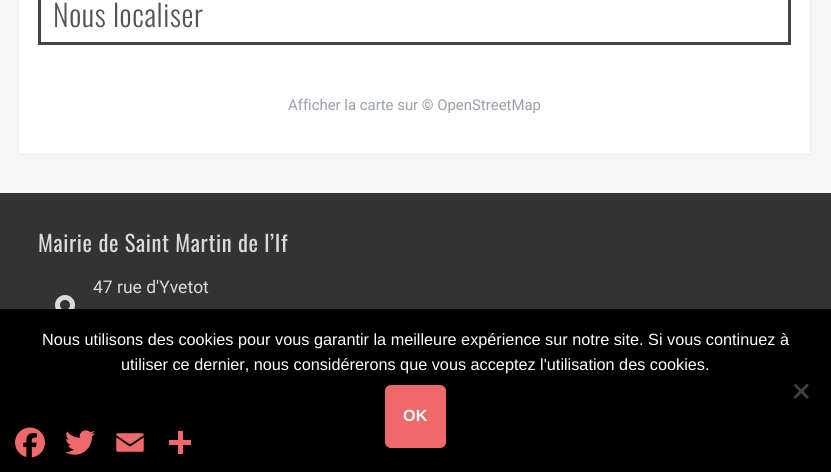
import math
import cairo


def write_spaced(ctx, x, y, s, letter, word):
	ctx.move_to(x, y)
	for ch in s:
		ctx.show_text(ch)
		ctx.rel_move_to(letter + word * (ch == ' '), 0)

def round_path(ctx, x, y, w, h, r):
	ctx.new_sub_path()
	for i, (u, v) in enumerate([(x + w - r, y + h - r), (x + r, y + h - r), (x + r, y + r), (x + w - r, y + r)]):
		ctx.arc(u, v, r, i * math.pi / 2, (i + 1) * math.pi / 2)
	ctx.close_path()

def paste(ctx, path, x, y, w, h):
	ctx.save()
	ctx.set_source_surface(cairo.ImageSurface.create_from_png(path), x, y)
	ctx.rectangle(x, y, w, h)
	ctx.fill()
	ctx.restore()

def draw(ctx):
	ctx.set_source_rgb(0.961, 0.961, 0.961)
	ctx.paint()
	ctx.set_source_rgb(1, 1, 1)
	ctx.rectangle(19, 0, 791, 154)
	ctx.fill()
	ctx.set_source_rgb(0.922, 0.922, 0.922)
	ctx.rectangle(810, 0, 1, 155)
	ctx.rectangle(18, 154, 793, 1)
	ctx.rectangle(18, 0, 1, 155)
	ctx.fill()
	ctx.rectangle(39.5, -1.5, 750, 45)
	ctx.set_source_rgb(0.267, 0.267, 0.267)
	ctx.set_line_width(3)
	ctx.stroke()
	ctx.select_font_face('Oswald Light')
	ctx.set_font_size(30)
	ctx.set_source_rgb(0.314, 0.333, 0.349)
	write_spaced(ctx, 53, 27, 'Nous localiser', 0.6, 0)
	ctx.select_font_face('Roboto')
	ctx.set_font_size(14.9)
	ctx.set_source_rgb(0.596, 0.624, 0.659)
	ctx.move_to(288, 110)
	ctx.show_text('Afficher la carte sur © OpenStreetMap')
	ctx.set_source_rgb(0.2, 0.2, 0.2)
	ctx.rectangle(0, 193, 831, 116)
	ctx.fill()
	ctx.select_font_face('Oswald')
	ctx.set_font_size(22.5)
	ctx.set_source_rgb(0.855, 0.855, 0.855)
	write_spaced(ctx, 38, 252, 'Mairie de Saint Martin de l’If', 0.6, 0)
	ctx.select_font_face('Roboto')
	ctx.set_font_size(17.5)
	ctx.move_to(93, 293)
	ctx.show_text('47 rue d\'Yvetot')
	paste(ctx, 'media/1.png', 55, 295, 20, 14)
	ctx.set_source_rgb(0, 0, 0)
	ctx.rectangle(0, 309, 831, 163)
	ctx.fill()
	ctx.select_font_face('Liberation Sans')
	ctx.set_font_size(16.25)
	ctx.set_source_rgb(1, 1, 1)
	ctx.move_to(42, 345)
	ctx.show_text('Nous utilisons des cookies pour vous garantir la meilleure expérience sur notre site. Si vous continuez à')
	ctx.move_to(121, 370)
	ctx.show_text('utiliser ce dernier, nous considérerons que vous acceptez l\'utilisation des cookies.')
	ctx.set_source_rgb(0.251, 0.251, 0.251)
	ctx.new_path()
	ctx.move_to(807, 383.5)
	ctx.line_to(809, 385.5)
	ctx.line_to(795.5, 399)
	ctx.line_to(793.5, 397)
	ctx.close_path()
	ctx.fill()
	ctx.new_path()
	ctx.move_to(793.5, 385.5)
	ctx.line_to(795.5, 383.5)
	ctx.line_to(809, 397)
	ctx.line_to(807, 399)
	ctx.close_path()
	ctx.fill()
	ctx.set_source_rgb(0.941, 0.412, 0.416)
	round_path(ctx, 385, 385, 61, 63, 6)
	ctx.fill()
	ctx.select_font_face('Liberation Sans', cairo.FONT_SLANT_NORMAL, cairo.FONT_WEIGHT_BOLD)
	ctx.set_source_rgb(1, 1, 1)
	ctx.move_to(403, 421)
	ctx.show_text('OK')
	paste(ctx, 'media/2.png', 15, 427, 30, 31)
	paste(ctx, 'media/3.png', 65, 430, 30, 25)
	paste(ctx, 'media/4.png', 116, 433, 28, 19)
	ctx.set_source_rgb(0.941, 0.412, 0.416)
	ctx.rectangle(178, 431, 5, 23)
	ctx.fill()
	ctx.rectangle(169, 440, 22, 5)
	ctx.fill()


surface = cairo.ImageSurface(cairo.FORMAT_RGB24, 831, 472)
ctx = cairo.Context(surface)
options = cairo.FontOptions()
options.set_hint_metrics(cairo.HINT_METRICS_OFF)
options.set_hint_style(cairo.HINT_STYLE_NONE)
ctx.set_font_options(options)
ctx.set_miter_limit(4)
draw(ctx)
surface.write_to_png('image.png')
